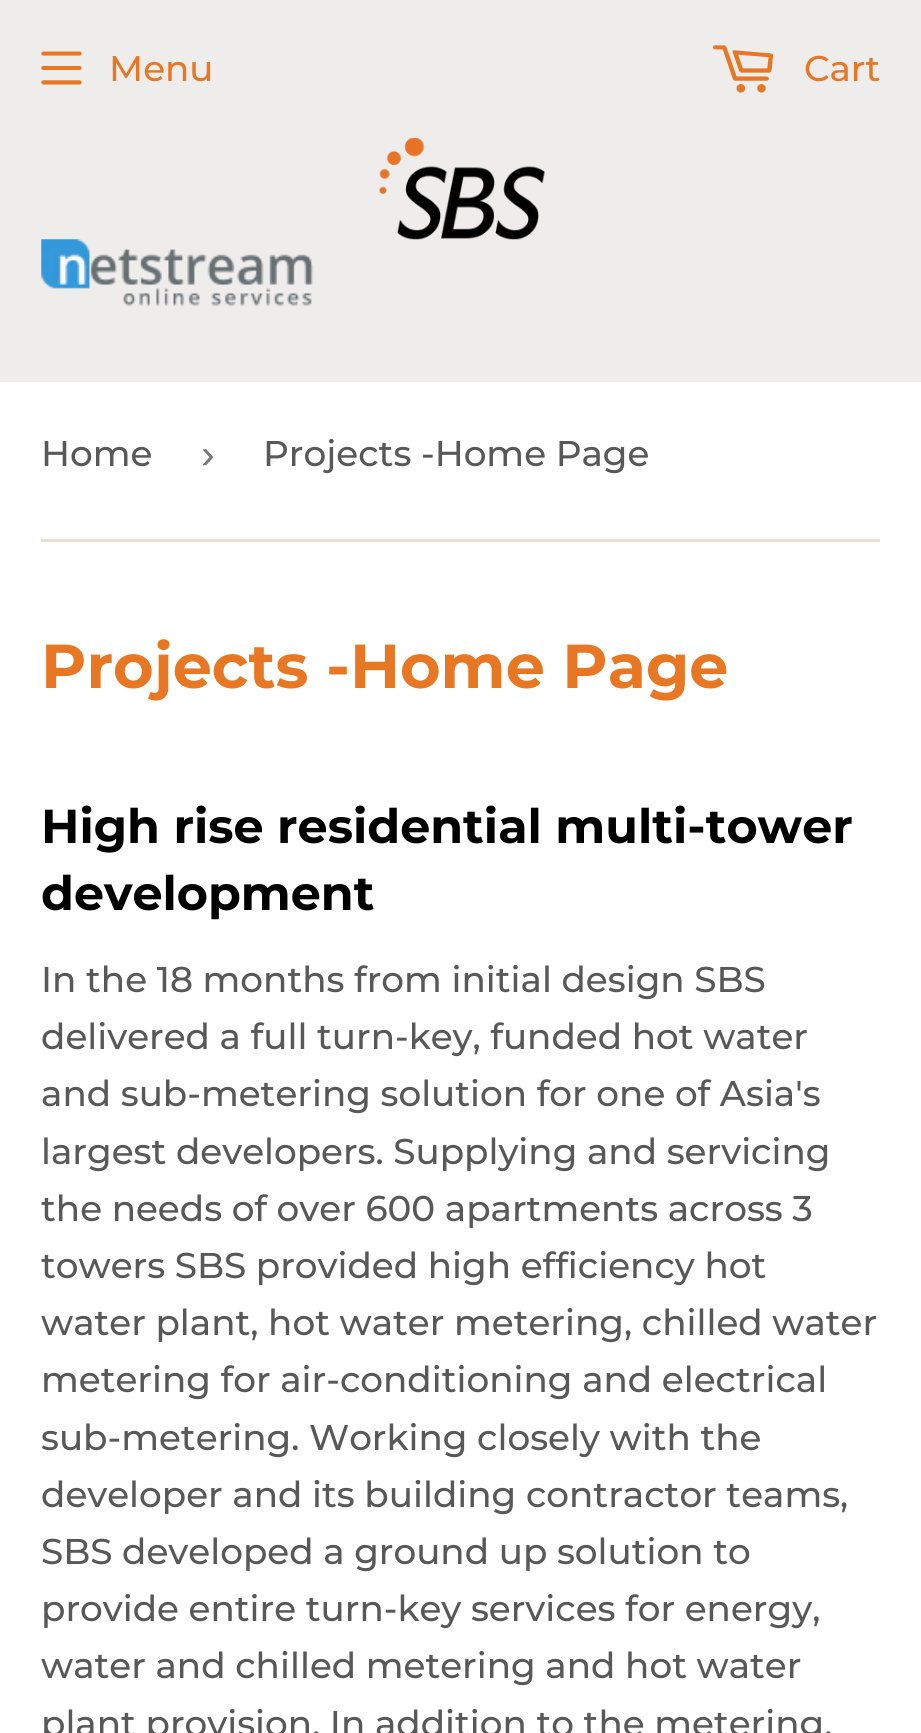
import math
import cairo


def paste(ctx, path, x, y, w, h):
	ctx.save()
	ctx.set_source_surface(cairo.ImageSurface.create_from_png(path), x, y)
	ctx.rectangle(x, y, w, h)
	ctx.fill()
	ctx.restore()

def draw(ctx):
	ctx.set_source_rgb(1, 1, 1)
	ctx.paint()
	ctx.set_source_rgb(0.937, 0.929, 0.925)
	ctx.rectangle(0, 0, 921, 382)
	ctx.fill()
	paste(ctx, 'media/1.png', 379, 138, 166, 102)
	paste(ctx, 'media/2.png', 41, 239, 273, 67)
	paste(ctx, 'media/3.png', 41, 51, 41, 34)
	ctx.select_font_face('Montserrat Medium')
	ctx.set_font_size(35.75)
	ctx.set_source_rgb(0.91, 0.467, 0.141)
	ctx.move_to(109, 81)
	ctx.show_text('Menu')
	paste(ctx, 'media/4.png', 712, 45, 62, 48)
	ctx.move_to(804, 81)
	ctx.show_text('Cart')
	ctx.set_source_rgb(0.922, 0.867, 0.824)
	ctx.rectangle(41, 539, 839, 3)
	ctx.fill()
	ctx.set_source_rgb(0.345, 0.345, 0.345)
	ctx.move_to(41, 466)
	ctx.show_text('Home')
	ctx.select_font_face('Liberation Sans')
	ctx.set_font_size(41)
	ctx.set_source_rgb(0.463, 0.463, 0.463)
	ctx.move_to(201, 468)
	ctx.show_text('›')
	ctx.select_font_face('Montserrat Medium')
	ctx.set_font_size(35.75)
	ctx.set_source_rgb(0.345, 0.345, 0.345)
	ctx.move_to(263, 466)
	ctx.show_text('Projects -Home Page')
	ctx.select_font_face('Montserrat', cairo.FONT_SLANT_NORMAL, cairo.FONT_WEIGHT_BOLD)
	ctx.set_font_size(62)
	ctx.set_source_rgb(0.91, 0.467, 0.141)
	ctx.move_to(41, 688)
	ctx.show_text('Projects -Home Page')
	ctx.set_font_size(47.6)
	ctx.set_source_rgb(0, 0, 0)
	ctx.move_to(41, 843)
	ctx.show_text('High rise residential multi-tower')
	ctx.move_to(41, 910)
	ctx.show_text('development')
	ctx.select_font_face('Montserrat Medium')
	ctx.set_font_size(35.75)
	ctx.set_source_rgb(0.345, 0.345, 0.345)
	for x, y, s in [
		(41, 992, 'In the 18 months from initial design SBS'),
		(41, 1049, 'delivered a full turn-key, funded hot water'),
		(41, 1106, 'and sub-metering solution for one of Asia\'s'),
		(41, 1164, 'largest developers. Supplying and servicing'),
		(41, 1221, 'the needs of over 600 apartments across 3'),
		(41, 1278, 'towers SBS provided high efficiency hot'),
		(41, 1335, 'water plant, hot water metering, chilled water'),
		(41, 1392, 'metering for air-conditioning and electrical'),
		(41, 1450, 'sub-metering. Working closely with the'),
		(41, 1507, 'developer and its building contractor teams,'),
		(41, 1564, 'SBS developed a ground up solution to'),
		(41, 1621, 'provide entire turn-key services for energy,'),
		(41, 1678, 'water and chilled metering and hot water'),
		(41, 1736, 'plant provision. In addition to the metering,'),
	]:
		ctx.move_to(x, y)
		ctx.show_text(s)


surface = cairo.ImageSurface(cairo.FORMAT_RGB24, 921, 1733)
ctx = cairo.Context(surface)
options = cairo.FontOptions()
options.set_hint_metrics(cairo.HINT_METRICS_OFF)
options.set_hint_style(cairo.HINT_STYLE_NONE)
ctx.set_font_options(options)
ctx.set_miter_limit(4)
draw(ctx)
surface.write_to_png('image.png')
